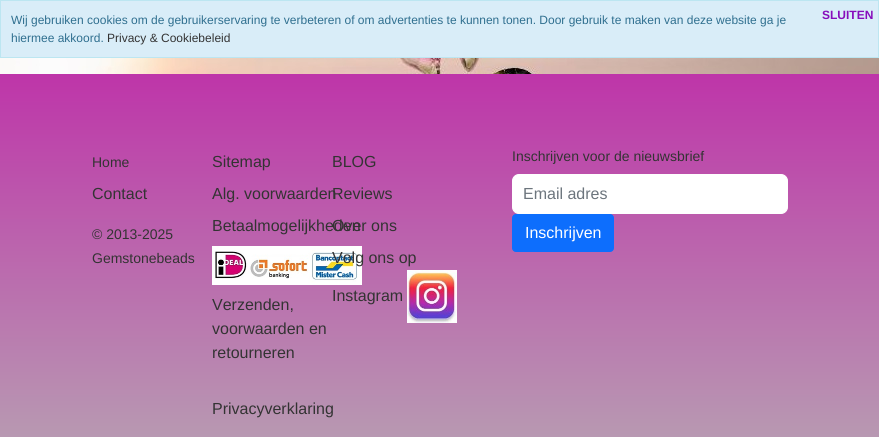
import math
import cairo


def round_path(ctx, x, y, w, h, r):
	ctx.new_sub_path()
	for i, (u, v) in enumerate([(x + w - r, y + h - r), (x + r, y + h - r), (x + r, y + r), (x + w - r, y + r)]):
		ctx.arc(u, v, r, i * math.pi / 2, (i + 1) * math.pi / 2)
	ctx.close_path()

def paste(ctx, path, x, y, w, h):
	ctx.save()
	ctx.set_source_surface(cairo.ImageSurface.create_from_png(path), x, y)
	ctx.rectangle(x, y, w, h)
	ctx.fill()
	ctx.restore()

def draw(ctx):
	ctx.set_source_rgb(1, 1, 1)
	ctx.paint()
	paste(ctx, 'media/1.png', 0, 58, 879, 16)
	ctx.set_source_rgb(0.851, 0.929, 0.969)
	ctx.rectangle(0.5, 0.5, 878, 57)
	ctx.fill_preserve()
	ctx.set_source_rgb(0.737, 0.902, 0.945)
	ctx.set_line_width(1)
	ctx.stroke()
	ctx.select_font_face('Liberation Sans')
	ctx.set_font_size(12)
	ctx.set_source_rgb(0.184, 0.435, 0.561)
	ctx.move_to(11, 24)
	ctx.show_text('Wij gebruiken cookies om de gebruikerservaring te verbeteren of om advertenties te kunnen tonen. Door gebruik te maken van deze website ga je')
	ctx.move_to(11, 42)
	ctx.show_text('hiermee akkoord.')
	ctx.set_source_rgb(0.2, 0.2, 0.2)
	ctx.move_to(107, 42)
	ctx.show_text('Privacy & Cookiebeleid')
	ctx.select_font_face('Liberation Sans', cairo.FONT_SLANT_NORMAL, cairo.FONT_WEIGHT_BOLD)
	ctx.set_source_rgb(0.529, 0.051, 0.733)
	ctx.move_to(822, 19)
	ctx.show_text('SLUITEN')
	gradient = cairo.LinearGradient(440, 74, 440, 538)
	gradient.add_color_stop_rgba(0, 0.745, 0.208, 0.663, 1)
	gradient.add_color_stop_rgba(1, 0.714, 0.706, 0.706, 1)
	ctx.set_source(gradient)
	ctx.rectangle(0, 74, 879, 363)
	ctx.fill()
	ctx.select_font_face('Liberation Sans')
	ctx.set_font_size(14)
	ctx.set_source_rgb(0.2, 0.2, 0.2)
	ctx.move_to(92, 167)
	ctx.show_text('Home')
	ctx.set_font_size(16)
	ctx.move_to(92, 199)
	ctx.show_text('Contact')
	ctx.set_font_size(14)
	ctx.move_to(92, 239)
	ctx.show_text('© 2013-2025')
	ctx.move_to(92, 263)
	ctx.show_text('Gemstonebeads')
	ctx.set_font_size(16)
	for x, y, s in [
		(212, 167, 'Sitemap'),
		(212, 199, 'Alg. voorwaarden'),
		(212, 231, 'Betaalmogelijkheden'),
	]:
		ctx.move_to(x, y)
		ctx.show_text(s)
	paste(ctx, 'media/2.png', 212, 246, 150, 39)
	for x, y, s in [
		(212, 310, 'Verzenden,'),
		(212, 334, 'voorwaarden en'),
		(212, 358, 'retourneren'),
		(212, 414, 'Privacyverklaring'),
		(332, 167, 'BLOG'),
		(332, 199, 'Reviews'),
		(332, 231, 'Over ons'),
		(332, 263, 'Volg ons op'),
		(332, 301, 'Instagram'),
	]:
		ctx.move_to(x, y)
		ctx.show_text(s)
	paste(ctx, 'media/3.png', 407, 270, 50, 53)
	ctx.set_font_size(14)
	ctx.move_to(512, 161)
	ctx.show_text('Inschrijven voor de nieuwsbrief')
	ctx.set_source_rgb(1, 1, 1)
	round_path(ctx, 512.5, 174.5, 275, 39, 6.5)
	ctx.fill_preserve()
	ctx.set_source_rgb(0.996, 1, 0.996)
	ctx.stroke()
	ctx.set_font_size(16)
	ctx.set_source_rgb(0.424, 0.459, 0.49)
	ctx.move_to(523, 199)
	ctx.show_text('Email adres')
	ctx.set_source_rgb(0.051, 0.431, 0.992)
	round_path(ctx, 512.5, 214.5, 101, 37, 3.5)
	ctx.fill_preserve()
	ctx.stroke()
	ctx.set_source_rgb(1, 1, 1)
	ctx.move_to(525, 238)
	ctx.show_text('Inschrijven')


surface = cairo.ImageSurface(cairo.FORMAT_RGB24, 879, 437)
ctx = cairo.Context(surface)
options = cairo.FontOptions()
options.set_hint_metrics(cairo.HINT_METRICS_OFF)
options.set_hint_style(cairo.HINT_STYLE_NONE)
ctx.set_font_options(options)
ctx.set_miter_limit(4)
draw(ctx)
surface.write_to_png('image.png')
